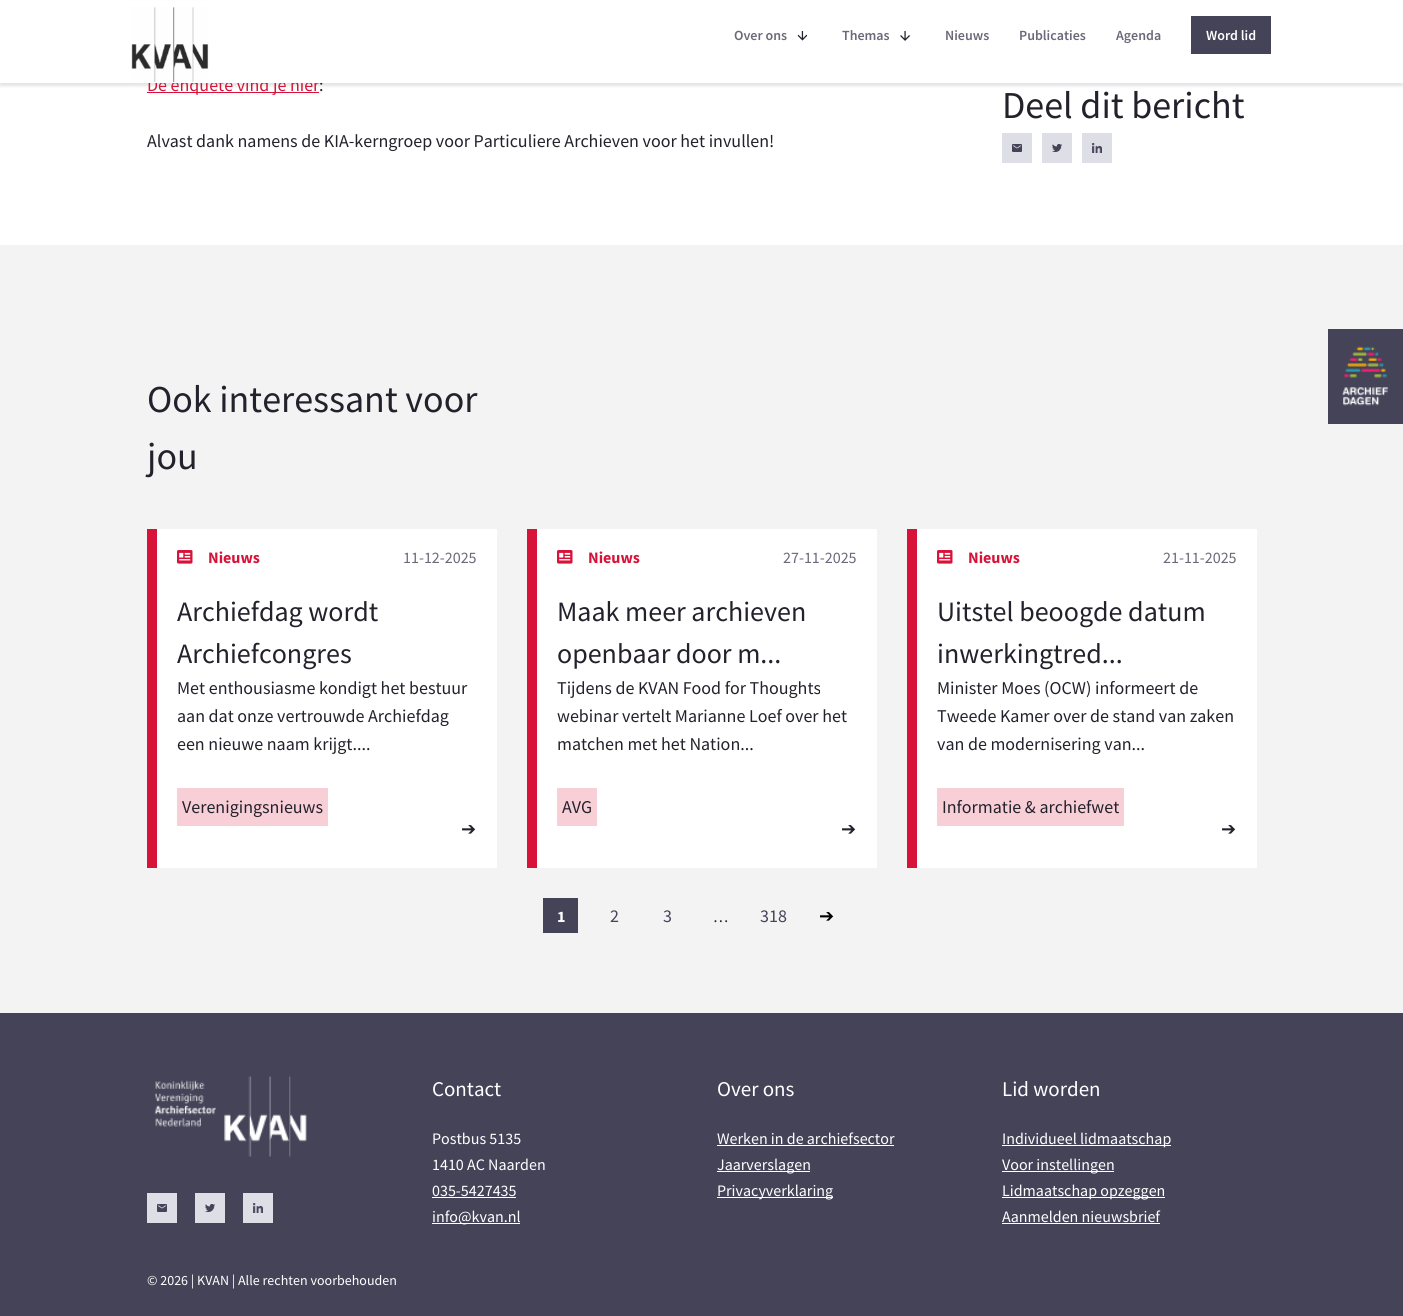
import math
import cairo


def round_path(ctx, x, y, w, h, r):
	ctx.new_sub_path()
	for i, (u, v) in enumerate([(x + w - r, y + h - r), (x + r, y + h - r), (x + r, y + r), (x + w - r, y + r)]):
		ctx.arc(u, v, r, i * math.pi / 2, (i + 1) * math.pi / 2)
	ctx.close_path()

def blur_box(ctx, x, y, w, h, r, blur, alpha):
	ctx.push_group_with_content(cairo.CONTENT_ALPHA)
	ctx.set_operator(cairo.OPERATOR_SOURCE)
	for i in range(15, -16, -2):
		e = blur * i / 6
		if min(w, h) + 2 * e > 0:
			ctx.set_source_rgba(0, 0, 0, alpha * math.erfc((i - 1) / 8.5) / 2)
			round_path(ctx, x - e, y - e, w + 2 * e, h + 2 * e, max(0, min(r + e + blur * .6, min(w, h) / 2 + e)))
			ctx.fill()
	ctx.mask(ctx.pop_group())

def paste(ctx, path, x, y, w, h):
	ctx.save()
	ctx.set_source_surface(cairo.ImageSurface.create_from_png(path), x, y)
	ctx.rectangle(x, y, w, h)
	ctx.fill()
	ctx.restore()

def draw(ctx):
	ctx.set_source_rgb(1, 1, 1)
	ctx.paint()
	ctx.set_source_rgb(0.271, 0.263, 0.345)
	blur_box(ctx, 0, 3, 1403, 83, 0, 1.5, 0.15)
	ctx.set_source_rgb(0.847, 0.075, 0.227)
	ctx.rectangle(147, 92, 172, 1)
	ctx.fill()
	ctx.select_font_face('Source Sans Pro')
	ctx.set_font_size(18)
	ctx.move_to(147, 91)
	ctx.show_text('De enquête vind je hier')
	ctx.set_source_rgb(0.137, 0.133, 0.173)
	ctx.move_to(319, 91)
	ctx.show_text(':')
	ctx.set_source_rgb(1, 1, 1)
	ctx.rectangle(0, 1, 1403, 82)
	ctx.fill()
	paste(ctx, 'media/1.png', 131, 7, 78, 75)
	ctx.select_font_face('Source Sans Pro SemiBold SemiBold')
	ctx.set_font_size(14)
	ctx.set_source_rgb(0.416, 0.412, 0.475)
	ctx.move_to(734, 40)
	ctx.show_text('Over ons')
	paste(ctx, 'media/2.png', 797, 31, 11, 10)
	ctx.move_to(842, 40)
	ctx.show_text('Themas')
	paste(ctx, 'media/3.png', 900, 31, 10, 10)
	for x, y, s in [
		(945, 40, 'Nieuws'),
		(1019, 40, 'Publicaties'),
		(1116, 40, 'Agenda'),
	]:
		ctx.move_to(x, y)
		ctx.show_text(s)
	ctx.set_source_rgb(0.271, 0.263, 0.345)
	ctx.rectangle(1191, 16, 80, 38)
	ctx.fill()
	ctx.set_source_rgb(1, 1, 1)
	ctx.move_to(1206, 40)
	ctx.show_text('Word lid')
	ctx.select_font_face('Source Sans Pro')
	ctx.set_font_size(18)
	ctx.set_source_rgb(0.137, 0.133, 0.173)
	ctx.move_to(147, 147)
	ctx.show_text('Alvast dank namens de KIA-kerngroep voor Particuliere Archieven voor het invullen!')
	ctx.set_font_size(38)
	ctx.move_to(1002, 118)
	ctx.show_text('Deel dit bericht')
	ctx.set_source_rgb(0.871, 0.871, 0.902)
	ctx.rectangle(1002, 133, 30, 30)
	ctx.fill()
	paste(ctx, 'media/4.png', 1012, 144, 10, 8)
	ctx.rectangle(1042, 133, 30, 30)
	ctx.fill()
	paste(ctx, 'media/5.png', 1052, 144, 10, 8)
	ctx.rectangle(1082, 133, 30, 30)
	ctx.fill()
	paste(ctx, 'media/6.png', 1092, 143, 10, 10)
	ctx.set_source_rgb(0.953, 0.953, 0.957)
	ctx.rectangle(0, 245, 1403, 768)
	ctx.fill()
	ctx.set_source_rgb(0.137, 0.133, 0.173)
	ctx.move_to(147, 412)
	ctx.show_text('Ook interessant voor')
	ctx.move_to(147, 469)
	ctx.show_text('jou')
	ctx.set_source_rgb(1, 1, 1)
	ctx.rectangle(157, 529, 340, 339)
	ctx.fill()
	ctx.set_source_rgb(0.847, 0.075, 0.227)
	ctx.rectangle(147, 529, 10, 339)
	ctx.fill()
	paste(ctx, 'media/7.png', 177, 550, 16, 14)
	ctx.select_font_face('Source Sans Pro', cairo.FONT_SLANT_NORMAL, cairo.FONT_WEIGHT_BOLD)
	ctx.set_font_size(16)
	ctx.move_to(208, 563)
	ctx.show_text('Nieuws')
	ctx.select_font_face('Source Sans Pro')
	ctx.set_source_rgb(0.416, 0.412, 0.475)
	ctx.move_to(403, 563)
	ctx.show_text('11-12-2025')
	ctx.set_font_size(28)
	ctx.set_source_rgb(0.137, 0.133, 0.173)
	ctx.move_to(177, 621)
	ctx.show_text('Archiefdag wordt')
	ctx.move_to(177, 663)
	ctx.show_text('Archiefcongres')
	ctx.set_font_size(18)
	for x, y, s in [
		(177, 694, 'Met enthousiasme kondigt het bestuur'),
		(177, 722, 'aan dat onze vertrouwde Archiefdag'),
		(177, 750, 'een nieuwe naam krijgt....'),
	]:
		ctx.move_to(x, y)
		ctx.show_text(s)
	ctx.set_source_rgb(0.969, 0.812, 0.843)
	ctx.rectangle(177, 788, 151, 38)
	ctx.fill()
	ctx.set_source_rgb(0.137, 0.133, 0.173)
	ctx.move_to(182, 813)
	ctx.show_text('Verenigingsnieuws')
	ctx.select_font_face('DejaVu Sans')
	ctx.move_to(461, 835)
	ctx.show_text('➔')
	ctx.set_source_rgb(1, 1, 1)
	ctx.rectangle(537, 529, 340, 339)
	ctx.fill()
	ctx.set_source_rgb(0.847, 0.075, 0.227)
	ctx.rectangle(527, 529, 10, 339)
	ctx.fill()
	paste(ctx, 'media/7.png', 557, 550, 16, 14)
	ctx.select_font_face('Source Sans Pro', cairo.FONT_SLANT_NORMAL, cairo.FONT_WEIGHT_BOLD)
	ctx.set_font_size(16)
	ctx.move_to(588, 563)
	ctx.show_text('Nieuws')
	ctx.select_font_face('Source Sans Pro')
	ctx.set_source_rgb(0.416, 0.412, 0.475)
	ctx.move_to(783, 563)
	ctx.show_text('27-11-2025')
	ctx.set_font_size(28)
	ctx.set_source_rgb(0.137, 0.133, 0.173)
	ctx.move_to(557, 621)
	ctx.show_text('Maak meer archieven')
	ctx.move_to(557, 663)
	ctx.show_text('openbaar door m...')
	ctx.set_font_size(18)
	for x, y, s in [
		(557, 694, 'Tijdens de KVAN Food for Thoughts'),
		(557, 722, 'webinar vertelt Marianne Loef over het'),
		(557, 750, 'matchen met het Nation...'),
	]:
		ctx.move_to(x, y)
		ctx.show_text(s)
	ctx.set_source_rgb(0.969, 0.812, 0.843)
	ctx.rectangle(557, 788, 40, 38)
	ctx.fill()
	ctx.set_source_rgb(0.137, 0.133, 0.173)
	ctx.move_to(562, 813)
	ctx.show_text('AVG')
	ctx.select_font_face('DejaVu Sans')
	ctx.move_to(841, 835)
	ctx.show_text('➔')
	ctx.set_source_rgb(1, 1, 1)
	ctx.rectangle(917, 529, 340, 339)
	ctx.fill()
	ctx.set_source_rgb(0.847, 0.075, 0.227)
	ctx.rectangle(907, 529, 10, 339)
	ctx.fill()
	paste(ctx, 'media/7.png', 937, 550, 16, 14)
	ctx.select_font_face('Source Sans Pro', cairo.FONT_SLANT_NORMAL, cairo.FONT_WEIGHT_BOLD)
	ctx.set_font_size(16)
	ctx.move_to(968, 563)
	ctx.show_text('Nieuws')
	ctx.select_font_face('Source Sans Pro')
	ctx.set_source_rgb(0.416, 0.412, 0.475)
	ctx.move_to(1163, 563)
	ctx.show_text('21-11-2025')
	ctx.set_font_size(28)
	ctx.set_source_rgb(0.137, 0.133, 0.173)
	ctx.move_to(937, 621)
	ctx.show_text('Uitstel beoogde datum')
	ctx.move_to(937, 663)
	ctx.show_text('inwerkingtred...')
	ctx.set_font_size(18)
	for x, y, s in [
		(937, 694, 'Minister Moes (OCW) informeert de'),
		(937, 722, 'Tweede Kamer over de stand van zaken'),
		(937, 750, 'van de modernisering van...'),
	]:
		ctx.move_to(x, y)
		ctx.show_text(s)
	ctx.set_source_rgb(0.969, 0.812, 0.843)
	ctx.rectangle(937, 788, 187, 38)
	ctx.fill()
	ctx.set_source_rgb(0.137, 0.133, 0.173)
	ctx.move_to(942, 813)
	ctx.show_text('Informatie & archiefwet')
	ctx.select_font_face('DejaVu Sans')
	ctx.move_to(1221, 835)
	ctx.show_text('➔')
	ctx.set_source_rgb(0.271, 0.263, 0.345)
	ctx.rectangle(543, 898, 35, 35)
	ctx.fill()
	ctx.select_font_face('Source Sans Pro', cairo.FONT_SLANT_NORMAL, cairo.FONT_WEIGHT_BOLD)
	ctx.set_font_size(16)
	ctx.set_source_rgb(1, 1, 1)
	ctx.move_to(557, 922)
	ctx.show_text('1')
	ctx.select_font_face('Source Sans Pro')
	ctx.set_font_size(18)
	ctx.set_source_rgb(0.271, 0.263, 0.345)
	for x, y, s in [
		(610, 922, '2'),
		(663, 922, '3'),
		(760, 922, '318'),
	]:
		ctx.move_to(x, y)
		ctx.show_text(s)
	ctx.select_font_face('DejaVu Sans')
	ctx.set_source_rgb(0, 0, 0)
	ctx.move_to(819, 922)
	ctx.show_text('➔')
	ctx.select_font_face('Source Sans Pro')
	ctx.set_font_size(16)
	ctx.set_source_rgb(0.137, 0.133, 0.173)
	ctx.move_to(713, 922)
	ctx.show_text('…')
	ctx.set_source_rgb(0.271, 0.263, 0.345)
	ctx.rectangle(1328, 329, 75, 95)
	ctx.fill()
	paste(ctx, 'media/8.png', 1342, 346, 47, 60)
	ctx.rectangle(0, 1013, 1403, 303)
	ctx.fill()
	paste(ctx, 'media/9.png', 154, 1076, 153, 81)
	ctx.set_source_rgb(0.871, 0.871, 0.902)
	ctx.rectangle(147, 1193, 30, 30)
	ctx.fill()
	paste(ctx, 'media/10.png', 157, 1204, 10, 8)
	ctx.rectangle(195, 1193, 30, 30)
	ctx.fill()
	paste(ctx, 'media/11.png', 205, 1204, 10, 8)
	ctx.rectangle(243, 1193, 30, 30)
	ctx.fill()
	paste(ctx, 'media/6.png', 253, 1203, 10, 10)
	ctx.set_font_size(21)
	ctx.set_source_rgb(1, 1, 1)
	ctx.move_to(432, 1096)
	ctx.show_text('Contact')
	ctx.set_font_size(16)
	for x, y, s in [
		(432, 1144, 'Postbus 5135'),
		(432, 1170, '1410 AC Naarden'),
		(432, 1196, '035-5427435'),
	]:
		ctx.move_to(x, y)
		ctx.show_text(s)
	ctx.rectangle(432, 1197, 84, 1)
	ctx.fill()
	ctx.rectangle(432, 1223, 88, 1)
	ctx.fill()
	ctx.move_to(432, 1222)
	ctx.show_text('info@kvan.nl')
	ctx.set_font_size(21)
	ctx.move_to(717, 1096)
	ctx.show_text('Over ons')
	ctx.set_font_size(16)
	ctx.move_to(717, 1144)
	ctx.show_text('Werken in de archiefsector')
	ctx.rectangle(717, 1145, 177, 1)
	ctx.fill()
	ctx.rectangle(717, 1171, 93, 1)
	ctx.fill()
	ctx.move_to(717, 1170)
	ctx.show_text('Jaarverslagen')
	ctx.rectangle(717, 1197, 116, 1)
	ctx.fill()
	ctx.move_to(717, 1196)
	ctx.show_text('Privacyverklaring')
	ctx.set_font_size(21)
	ctx.move_to(1002, 1096)
	ctx.show_text('Lid worden')
	ctx.rectangle(1002, 1145, 169, 1)
	ctx.fill()
	ctx.set_font_size(16)
	ctx.move_to(1002, 1144)
	ctx.show_text('Individueel lidmaatschap')
	ctx.rectangle(1002, 1171, 112, 1)
	ctx.fill()
	ctx.move_to(1002, 1170)
	ctx.show_text('Voor instellingen')
	ctx.rectangle(1002, 1197, 163, 1)
	ctx.fill()
	ctx.move_to(1002, 1196)
	ctx.show_text('Lidmaatschap opzeggen')
	ctx.move_to(1002, 1222)
	ctx.show_text('Aanmelden nieuwsbrief')
	ctx.rectangle(1002, 1223, 158, 1)
	ctx.fill()
	ctx.set_font_size(14)
	ctx.move_to(147, 1285)
	ctx.show_text('© 2026 | KVAN | Alle rechten voorbehouden')


surface = cairo.ImageSurface(cairo.FORMAT_RGB24, 1403, 1316)
ctx = cairo.Context(surface)
options = cairo.FontOptions()
options.set_hint_metrics(cairo.HINT_METRICS_OFF)
options.set_hint_style(cairo.HINT_STYLE_NONE)
ctx.set_font_options(options)
ctx.set_miter_limit(4)
draw(ctx)
surface.write_to_png('image.png')
